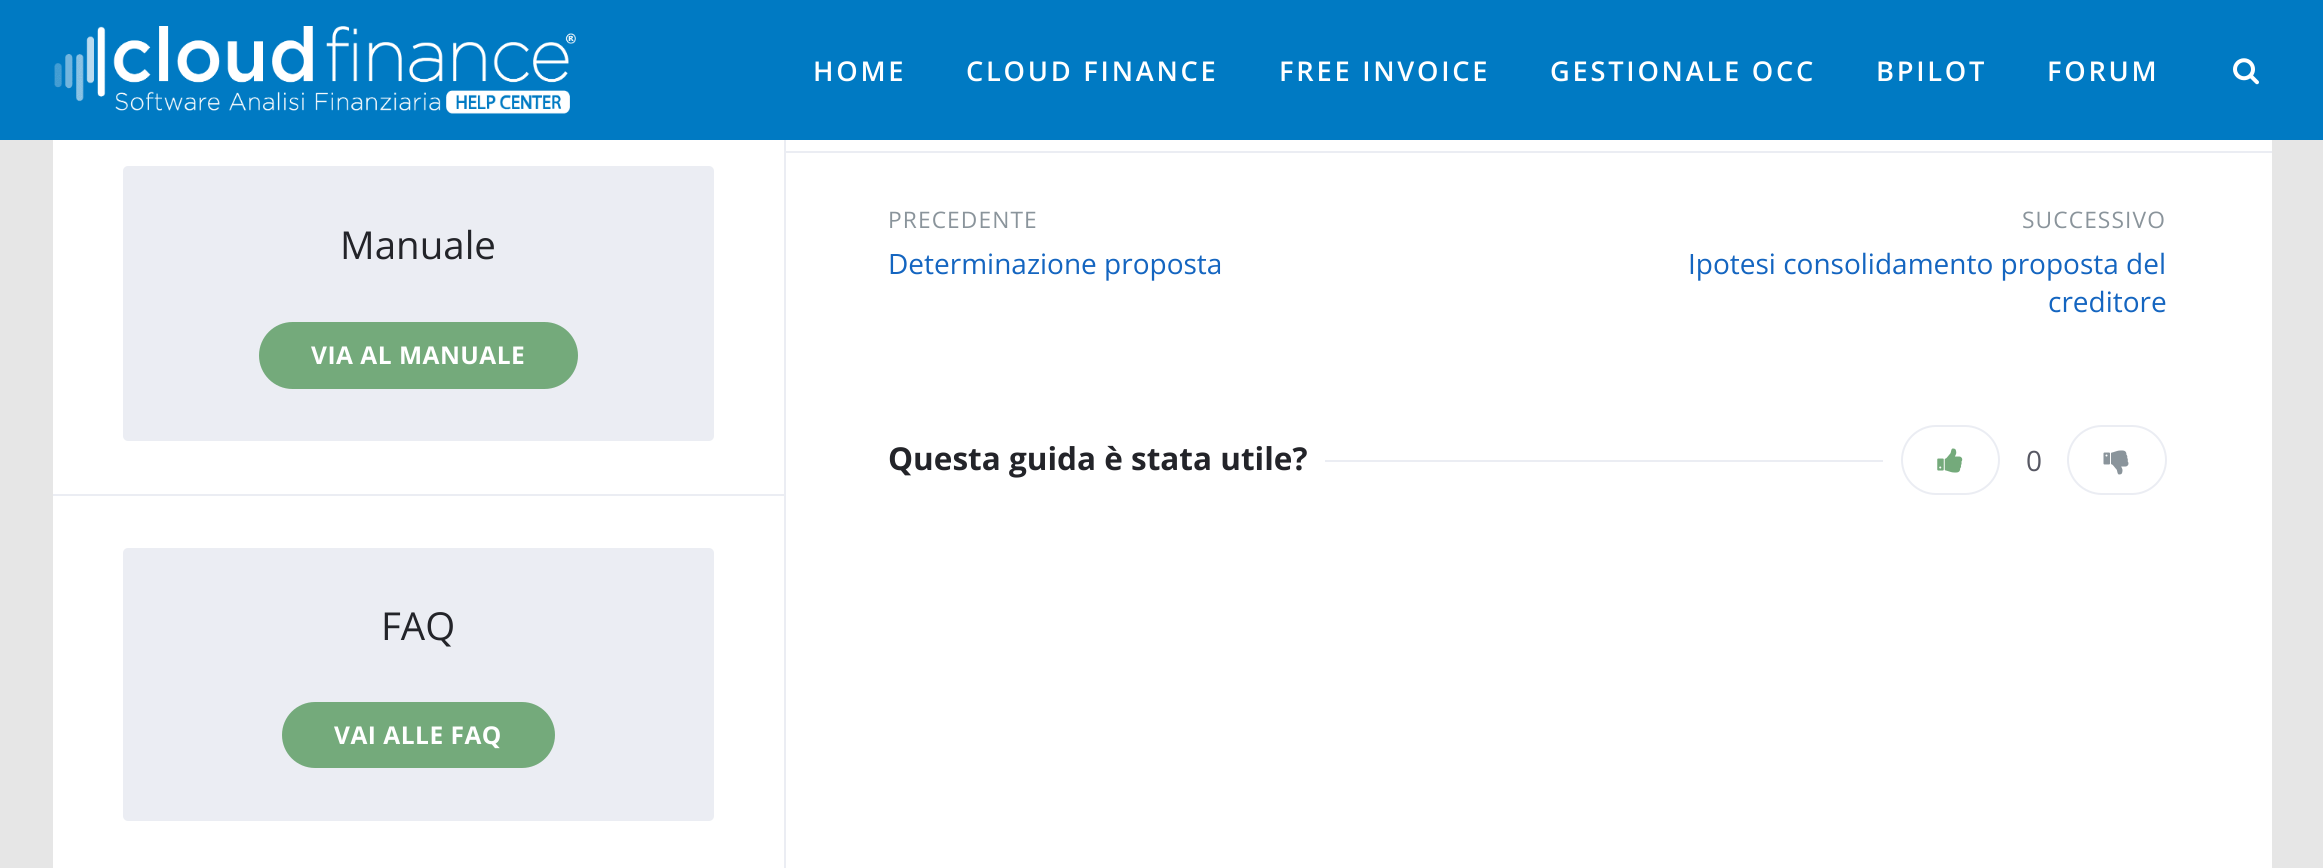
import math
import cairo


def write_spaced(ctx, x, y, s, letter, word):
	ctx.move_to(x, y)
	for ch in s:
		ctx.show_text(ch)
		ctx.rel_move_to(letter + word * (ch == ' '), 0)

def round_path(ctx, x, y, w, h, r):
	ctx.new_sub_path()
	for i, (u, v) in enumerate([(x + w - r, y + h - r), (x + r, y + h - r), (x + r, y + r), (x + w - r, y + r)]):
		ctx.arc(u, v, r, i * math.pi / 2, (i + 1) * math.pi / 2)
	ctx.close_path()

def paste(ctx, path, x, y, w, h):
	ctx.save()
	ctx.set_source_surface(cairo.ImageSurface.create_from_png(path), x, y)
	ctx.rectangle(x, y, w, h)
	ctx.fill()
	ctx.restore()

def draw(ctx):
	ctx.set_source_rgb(0.902, 0.902, 0.902)
	ctx.paint()
	ctx.set_source_rgb(0, 0.478, 0.765)
	ctx.rectangle(0, 0, 2323, 140)
	ctx.fill()
	paste(ctx, 'media/1.png', 54, 26, 522, 88)
	ctx.select_font_face('Open Sans SemiBold')
	ctx.set_font_size(27.25)
	ctx.set_source_rgb(1, 1, 1)
	for x, y, s in [
		(813, 81, 'HOME'),
		(966, 81, 'CLOUD FINANCE'),
		(1279, 81, 'FREE INVOICE'),
		(1550, 81, 'GESTIONALE OCC'),
		(1876, 81, 'BPILOT'),
		(2047, 81, 'FORUM'),
	]:
		write_spaced(ctx, x, y, s, 2.75, 0)
	paste(ctx, 'media/2.png', 2233, 58, 26, 27)
	ctx.rectangle(53, 140, 2219, 728)
	ctx.fill()
	ctx.set_source_rgb(0.918, 0.929, 0.953)
	round_path(ctx, 123, 166, 591, 275, 5)
	ctx.fill()
	ctx.select_font_face('Open Sans')
	ctx.set_font_size(38.5)
	ctx.set_source_rgb(0.137, 0.141, 0.161)
	ctx.move_to(340, 259)
	ctx.show_text('Manuale')
	ctx.set_source_rgb(0.455, 0.667, 0.482)
	round_path(ctx, 259, 322, 319, 67, 33.5)
	ctx.fill()
	ctx.select_font_face('Open Sans', cairo.FONT_SLANT_NORMAL, cairo.FONT_WEIGHT_BOLD)
	ctx.set_font_size(24.5)
	ctx.set_source_rgb(1, 1, 1)
	write_spaced(ctx, 311, 364, 'VIA AL MANUALE', 0.5, 0)
	ctx.set_source_rgb(0.918, 0.929, 0.953)
	ctx.rectangle(53, 494, 731, 2)
	ctx.fill()
	round_path(ctx, 123, 548, 591, 273, 5)
	ctx.fill()
	ctx.select_font_face('Open Sans')
	ctx.set_font_size(38.5)
	ctx.set_source_rgb(0.137, 0.141, 0.161)
	ctx.move_to(381, 640)
	ctx.show_text('FAQ')
	ctx.set_source_rgb(0.455, 0.667, 0.482)
	round_path(ctx, 282, 702, 273, 66, 33)
	ctx.fill()
	ctx.select_font_face('Open Sans', cairo.FONT_SLANT_NORMAL, cairo.FONT_WEIGHT_BOLD)
	ctx.set_font_size(24.5)
	ctx.set_source_rgb(1, 1, 1)
	write_spaced(ctx, 334, 744, 'VAI ALLE FAQ', 0.5, 0)
	ctx.set_source_rgb(0.918, 0.929, 0.953)
	ctx.rectangle(784, 151, 1488, 2)
	ctx.fill()
	ctx.rectangle(784, 140, 2, 728)
	ctx.fill()
	ctx.select_font_face('Open Sans')
	ctx.set_font_size(22.75)
	ctx.set_source_rgb(0.541, 0.58, 0.608)
	write_spaced(ctx, 888, 228, 'PRECEDENTE', 1.1, 0)
	ctx.set_font_size(28)
	ctx.set_source_rgb(0.082, 0.396, 0.753)
	ctx.move_to(888, 274)
	ctx.show_text('Determinazione proposta')
	ctx.set_font_size(22.75)
	ctx.set_source_rgb(0.541, 0.58, 0.608)
	write_spaced(ctx, 2022, 228, 'SUCCESSIVO', 1.1, 0)
	ctx.set_font_size(28)
	ctx.set_source_rgb(0.082, 0.396, 0.753)
	ctx.move_to(1688, 274)
	ctx.show_text('Ipotesi consolidamento proposta del')
	ctx.move_to(2048, 312)
	ctx.show_text('creditore')
	ctx.select_font_face('Open Sans', cairo.FONT_SLANT_NORMAL, cairo.FONT_WEIGHT_BOLD)
	ctx.set_font_size(31.5)
	ctx.set_source_rgb(0.137, 0.141, 0.161)
	ctx.move_to(888, 470)
	ctx.show_text('Questa guida è stata utile?')
	ctx.set_source_rgb(0.918, 0.929, 0.953)
	ctx.rectangle(1325, 460, 558, 2)
	ctx.fill()
	round_path(ctx, 1902, 426, 97, 68, 34)
	ctx.stroke()
	paste(ctx, 'media/3.png', 1937, 448, 26, 25)
	ctx.select_font_face('Open Sans')
	ctx.set_font_size(28)
	ctx.set_source_rgb(0.341, 0.345, 0.388)
	ctx.move_to(2026, 471)
	ctx.show_text('0')
	round_path(ctx, 2068, 426, 98, 68, 34)
	ctx.set_source_rgb(0.918, 0.929, 0.953)
	ctx.stroke()
	paste(ctx, 'media/4.png', 2103, 450, 26, 25)


surface = cairo.ImageSurface(cairo.FORMAT_RGB24, 2323, 868)
ctx = cairo.Context(surface)
options = cairo.FontOptions()
options.set_hint_metrics(cairo.HINT_METRICS_OFF)
options.set_hint_style(cairo.HINT_STYLE_NONE)
ctx.set_font_options(options)
ctx.set_miter_limit(4)
draw(ctx)
surface.write_to_png('image.png')
